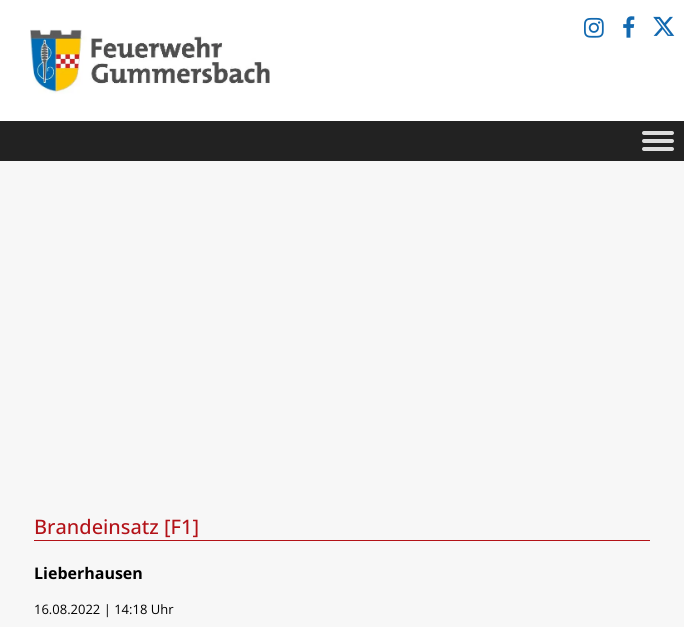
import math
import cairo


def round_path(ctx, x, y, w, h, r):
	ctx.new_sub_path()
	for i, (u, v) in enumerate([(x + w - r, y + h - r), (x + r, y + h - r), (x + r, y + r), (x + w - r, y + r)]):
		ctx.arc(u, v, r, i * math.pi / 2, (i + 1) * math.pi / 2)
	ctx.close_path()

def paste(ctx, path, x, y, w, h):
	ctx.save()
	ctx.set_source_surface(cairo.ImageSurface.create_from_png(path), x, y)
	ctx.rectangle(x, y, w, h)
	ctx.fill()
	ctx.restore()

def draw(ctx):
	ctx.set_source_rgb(1, 1, 1)
	ctx.paint()
	paste(ctx, 'media/1.png', 30, 29, 240, 65)
	paste(ctx, 'media/2.png', 584, 17, 20, 21)
	paste(ctx, 'media/3.png', 623, 16, 12, 22)
	paste(ctx, 'media/4.png', 653, 16, 22, 20)
	ctx.set_source_rgb(0.133, 0.133, 0.133)
	ctx.rectangle(0, 121, 684, 40)
	ctx.fill()
	ctx.set_source_rgb(0.867, 0.867, 0.867)
	round_path(ctx, 642, 131, 32, 4, 2)
	ctx.fill()
	round_path(ctx, 642, 139, 32, 4, 2)
	ctx.fill()
	round_path(ctx, 642, 147, 32, 4, 2)
	ctx.fill()
	ctx.set_source_rgb(0.965, 0.965, 0.965)
	ctx.rectangle(0, 161, 684, 466)
	ctx.fill()
	ctx.set_source_rgb(0.702, 0.071, 0.094)
	ctx.rectangle(34, 540, 616, 1)
	ctx.fill()
	ctx.select_font_face('Open Sans Medium')
	ctx.set_font_size(20)
	ctx.move_to(34, 534)
	ctx.show_text('Brandeinsatz [F1]')
	ctx.select_font_face('Open Sans', cairo.FONT_SLANT_NORMAL, cairo.FONT_WEIGHT_BOLD)
	ctx.set_font_size(16)
	ctx.set_source_rgb(0, 0, 0)
	ctx.move_to(34, 579)
	ctx.show_text('Lieberhausen')
	ctx.select_font_face('Open Sans')
	ctx.set_font_size(13)
	ctx.move_to(34, 614)
	ctx.show_text('16.08.2022 | 14:18 Uhr')


surface = cairo.ImageSurface(cairo.FORMAT_RGB24, 684, 627)
ctx = cairo.Context(surface)
options = cairo.FontOptions()
options.set_hint_metrics(cairo.HINT_METRICS_OFF)
options.set_hint_style(cairo.HINT_STYLE_NONE)
ctx.set_font_options(options)
ctx.set_miter_limit(4)
draw(ctx)
surface.write_to_png('image.png')
